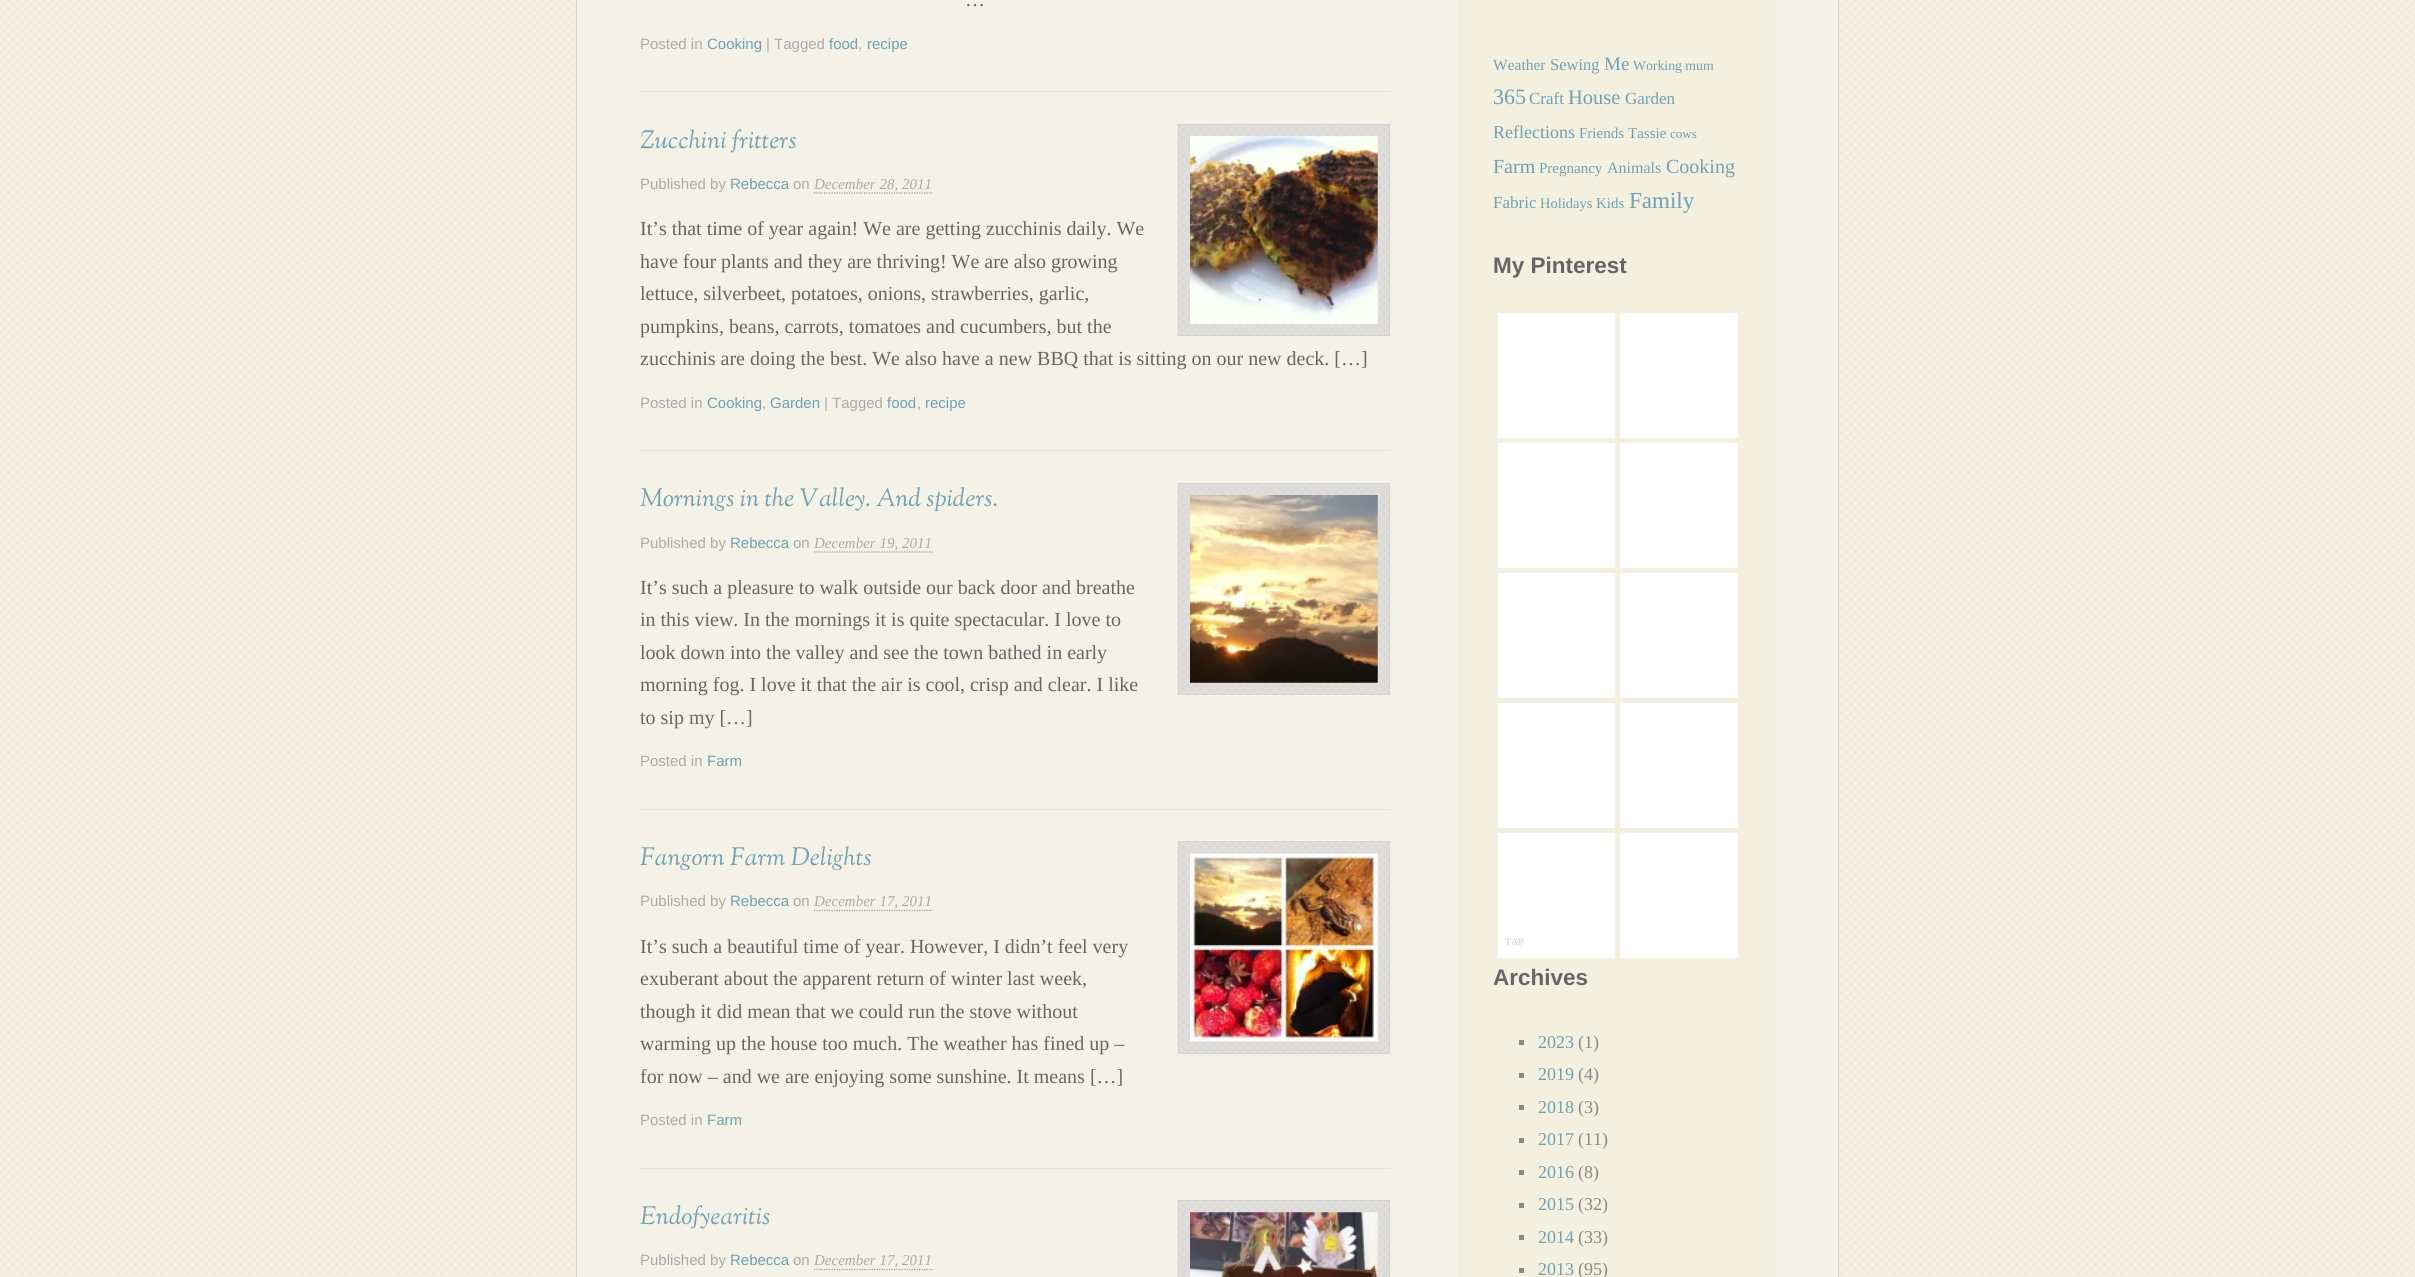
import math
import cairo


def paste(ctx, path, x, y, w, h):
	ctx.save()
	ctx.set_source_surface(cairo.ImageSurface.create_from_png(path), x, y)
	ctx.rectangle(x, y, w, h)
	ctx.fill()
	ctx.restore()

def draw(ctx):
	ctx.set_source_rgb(1, 1, 1)
	ctx.paint()
	paste(ctx, 'media/1.png', 0, 0, 2415, 1277)
	ctx.set_source_rgb(0.957, 0.949, 0.906)
	ctx.rectangle(576.5, -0.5, 1262, 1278)
	ctx.fill_preserve()
	ctx.set_source_rgb(0.835, 0.827, 0.82)
	ctx.set_line_width(1)
	ctx.stroke()
	ctx.set_source_rgb(0.886, 0.902, 0.886)
	ctx.rectangle(640, 91, 750, 1)
	ctx.fill()
	ctx.select_font_face('Liberation Serif')
	ctx.set_font_size(20)
	ctx.set_source_rgb(0.4, 0.4, 0.4)
	ctx.move_to(965, 6)
	ctx.show_text('…')
	ctx.select_font_face('Liberation Sans')
	ctx.set_font_size(15)
	ctx.set_source_rgb(0.667, 0.667, 0.667)
	ctx.move_to(640, 49)
	ctx.show_text('Posted in')
	ctx.set_source_rgb(0.439, 0.627, 0.698)
	ctx.move_to(707, 49)
	ctx.show_text('Cooking')
	ctx.set_source_rgb(0.667, 0.667, 0.667)
	ctx.move_to(766, 49)
	ctx.show_text('| Tagged')
	ctx.set_source_rgb(0.439, 0.627, 0.698)
	ctx.move_to(829, 49)
	ctx.show_text('food')
	ctx.set_source_rgb(0.667, 0.667, 0.667)
	ctx.move_to(858, 49)
	ctx.show_text(',')
	ctx.set_source_rgb(0.439, 0.627, 0.698)
	ctx.move_to(867, 49)
	ctx.show_text('recipe')
	ctx.set_source_rgb(0.886, 0.902, 0.886)
	ctx.rectangle(640, 450, 750, 1)
	ctx.fill()
	ctx.select_font_face('Sorts Mill Goudy Medium', cairo.FONT_SLANT_ITALIC)
	ctx.set_font_size(25)
	ctx.set_source_rgb(0.439, 0.627, 0.698)
	ctx.move_to(640, 148)
	ctx.show_text('Zucchini fritters')
	paste(ctx, 'media/2.png', 1177, 124, 212, 212)
	ctx.rectangle(1178.5, 124.5, 211, 211)
	ctx.set_source_rgb(0.835, 0.827, 0.82)
	ctx.stroke()
	paste(ctx, 'media/3.png', 1190, 136, 188, 188)
	ctx.select_font_face('Liberation Sans')
	ctx.set_font_size(15)
	ctx.set_source_rgb(0.667, 0.667, 0.667)
	ctx.move_to(640, 189)
	ctx.show_text('Published by')
	ctx.set_source_rgb(0.439, 0.627, 0.698)
	ctx.move_to(730, 189)
	ctx.show_text('Rebecca')
	ctx.set_source_rgb(0.667, 0.667, 0.667)
	ctx.move_to(793, 189)
	ctx.show_text('on')
	ctx.select_font_face('Liberation Serif', cairo.FONT_SLANT_ITALIC)
	ctx.move_to(814, 189)
	ctx.show_text('December 28, 2011')
	ctx.new_path()
	ctx.move_to(814, 193)
	ctx.line_to(932.5, 193)
	ctx.set_source_rgb(0.6, 0.6, 0.6)
	ctx.set_line_width(1.2)
	ctx.set_dash([1.25, 1.25])
	ctx.stroke()
	ctx.select_font_face('Liberation Serif')
	ctx.set_font_size(20)
	ctx.set_source_rgb(0.4, 0.4, 0.4)
	for x, y, s in [
		(640, 235, 'It’s that time of year again! We are getting zucchinis daily. We'),
		(640, 268, 'have four plants and they are thriving! We are also growing'),
		(640, 300, 'lettuce, silverbeet, potatoes, onions, strawberries, garlic,'),
		(640, 333, 'pumpkins, beans, carrots, tomatoes and cucumbers, but the'),
		(640, 365, 'zucchinis are doing the best. We also have a new BBQ that is sitting on our new deck. […]'),
	]:
		ctx.move_to(x, y)
		ctx.show_text(s)
	ctx.select_font_face('Liberation Sans')
	ctx.set_font_size(15)
	ctx.set_source_rgb(0.667, 0.667, 0.667)
	ctx.move_to(640, 408)
	ctx.show_text('Posted in')
	ctx.set_source_rgb(0.439, 0.627, 0.698)
	ctx.move_to(707, 408)
	ctx.show_text('Cooking')
	ctx.set_source_rgb(0.667, 0.667, 0.667)
	ctx.move_to(762, 408)
	ctx.show_text(',')
	ctx.set_source_rgb(0.439, 0.627, 0.698)
	ctx.move_to(770, 408)
	ctx.show_text('Garden')
	ctx.set_source_rgb(0.667, 0.667, 0.667)
	ctx.move_to(824, 408)
	ctx.show_text('| Tagged')
	ctx.set_source_rgb(0.439, 0.627, 0.698)
	ctx.move_to(887, 408)
	ctx.show_text('food')
	ctx.set_source_rgb(0.667, 0.667, 0.667)
	ctx.move_to(917, 408)
	ctx.show_text(',')
	ctx.set_source_rgb(0.439, 0.627, 0.698)
	ctx.move_to(925, 408)
	ctx.show_text('recipe')
	ctx.set_source_rgb(0.886, 0.902, 0.886)
	ctx.rectangle(640, 809, 750, 1)
	ctx.fill()
	ctx.select_font_face('Sorts Mill Goudy Medium', cairo.FONT_SLANT_ITALIC)
	ctx.set_font_size(25)
	ctx.set_source_rgb(0.439, 0.627, 0.698)
	ctx.move_to(640, 506)
	ctx.show_text('Mornings in the Valley. And spiders.')
	paste(ctx, 'media/4.png', 1177, 483, 212, 212)
	ctx.rectangle(1178.5, 483.5, 211, 211)
	ctx.set_source_rgb(0.835, 0.827, 0.82)
	ctx.set_line_width(1)
	ctx.set_dash([])
	ctx.stroke()
	paste(ctx, 'media/5.png', 1190, 495, 188, 188)
	ctx.select_font_face('Liberation Sans')
	ctx.set_font_size(15)
	ctx.set_source_rgb(0.667, 0.667, 0.667)
	ctx.move_to(640, 548)
	ctx.show_text('Published by')
	ctx.set_source_rgb(0.439, 0.627, 0.698)
	ctx.move_to(730, 548)
	ctx.show_text('Rebecca')
	ctx.set_source_rgb(0.667, 0.667, 0.667)
	ctx.move_to(793, 548)
	ctx.show_text('on')
	ctx.select_font_face('Liberation Serif', cairo.FONT_SLANT_ITALIC)
	ctx.move_to(814, 548)
	ctx.show_text('December 19, 2011')
	ctx.new_path()
	ctx.move_to(814, 552)
	ctx.line_to(932.5, 552)
	ctx.set_source_rgb(0.6, 0.6, 0.6)
	ctx.set_line_width(1.2)
	ctx.set_dash([1.25, 1.25])
	ctx.stroke()
	ctx.select_font_face('Liberation Serif')
	ctx.set_font_size(20)
	ctx.set_source_rgb(0.4, 0.4, 0.4)
	for x, y, s in [
		(640, 594, 'It’s such a pleasure to walk outside our back door and breathe'),
		(640, 626, 'in this view. In the mornings it is quite spectacular. I love to'),
		(640, 659, 'look down into the valley and see the town bathed in early'),
		(640, 691, 'morning fog. I love it that the air is cool, crisp and clear. I like'),
		(640, 724, 'to sip my […]'),
	]:
		ctx.move_to(x, y)
		ctx.show_text(s)
	ctx.select_font_face('Liberation Sans')
	ctx.set_font_size(15)
	ctx.set_source_rgb(0.667, 0.667, 0.667)
	ctx.move_to(640, 766)
	ctx.show_text('Posted in')
	ctx.set_source_rgb(0.439, 0.627, 0.698)
	ctx.move_to(707, 766)
	ctx.show_text('Farm')
	ctx.set_source_rgb(0.886, 0.902, 0.886)
	ctx.rectangle(640, 1168, 750, 1)
	ctx.fill()
	ctx.select_font_face('Sorts Mill Goudy Medium', cairo.FONT_SLANT_ITALIC)
	ctx.set_font_size(25)
	ctx.set_source_rgb(0.439, 0.627, 0.698)
	ctx.move_to(640, 865)
	ctx.show_text('Fangorn Farm Delights')
	paste(ctx, 'media/6.png', 1177, 842, 212, 212)
	ctx.rectangle(1178.5, 841.5, 211, 212)
	ctx.set_source_rgb(0.835, 0.827, 0.82)
	ctx.set_line_width(1)
	ctx.set_dash([])
	ctx.stroke()
	paste(ctx, 'media/7.png', 1190, 853, 188, 189)
	ctx.select_font_face('Liberation Sans')
	ctx.set_font_size(15)
	ctx.set_source_rgb(0.667, 0.667, 0.667)
	ctx.move_to(640, 906)
	ctx.show_text('Published by')
	ctx.set_source_rgb(0.439, 0.627, 0.698)
	ctx.move_to(730, 906)
	ctx.show_text('Rebecca')
	ctx.set_source_rgb(0.667, 0.667, 0.667)
	ctx.move_to(793, 906)
	ctx.show_text('on')
	ctx.select_font_face('Liberation Serif', cairo.FONT_SLANT_ITALIC)
	ctx.move_to(814, 906)
	ctx.show_text('December 17, 2011')
	ctx.new_path()
	ctx.move_to(814, 910.5)
	ctx.line_to(932.5, 910.5)
	ctx.set_source_rgb(0.6, 0.6, 0.6)
	ctx.set_line_width(1.2)
	ctx.set_dash([1.25, 1.25])
	ctx.stroke()
	ctx.select_font_face('Liberation Serif')
	ctx.set_font_size(20)
	ctx.set_source_rgb(0.4, 0.4, 0.4)
	for x, y, s in [
		(640, 953, 'It’s such a beautiful time of year. However, I didn’t feel very'),
		(640, 985, 'exuberant about the apparent return of winter last week,'),
		(640, 1018, 'though it did mean that we could run the stove without'),
		(640, 1050, 'warming up the house too much. The weather has fined up –'),
		(640, 1083, 'for now – and we are enjoying some sunshine. It means […]'),
	]:
		ctx.move_to(x, y)
		ctx.show_text(s)
	ctx.select_font_face('Liberation Sans')
	ctx.set_font_size(15)
	ctx.set_source_rgb(0.667, 0.667, 0.667)
	ctx.move_to(640, 1125)
	ctx.show_text('Posted in')
	ctx.set_source_rgb(0.439, 0.627, 0.698)
	ctx.move_to(707, 1125)
	ctx.show_text('Farm')
	ctx.select_font_face('Sorts Mill Goudy Medium', cairo.FONT_SLANT_ITALIC)
	ctx.set_font_size(25)
	ctx.move_to(640, 1224)
	ctx.show_text('Endofyearitis')
	paste(ctx, 'media/8.png', 1177, 1200, 212, 77)
	ctx.rectangle(1178.5, 1200.5, 211, 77)
	ctx.set_source_rgb(0.835, 0.827, 0.82)
	ctx.set_line_width(1)
	ctx.set_dash([])
	ctx.stroke()
	paste(ctx, 'media/9.png', 1190, 1212, 188, 65)
	ctx.select_font_face('Liberation Sans')
	ctx.set_font_size(15)
	ctx.set_source_rgb(0.667, 0.667, 0.667)
	ctx.move_to(640, 1265)
	ctx.show_text('Published by')
	ctx.set_source_rgb(0.439, 0.627, 0.698)
	ctx.move_to(730, 1265)
	ctx.show_text('Rebecca')
	ctx.set_source_rgb(0.667, 0.667, 0.667)
	ctx.move_to(793, 1265)
	ctx.show_text('on')
	ctx.select_font_face('Liberation Serif', cairo.FONT_SLANT_ITALIC)
	ctx.move_to(814, 1265)
	ctx.show_text('December 17, 2011')
	ctx.new_path()
	ctx.move_to(814, 1269.5)
	ctx.line_to(932.5, 1269.5)
	ctx.set_source_rgb(0.6, 0.6, 0.6)
	ctx.set_line_width(1.2)
	ctx.set_dash([1.25, 1.25])
	ctx.stroke()
	ctx.set_source_rgb(0.953, 0.941, 0.878)
	ctx.rectangle(1460.5, -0.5, 314, 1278)
	ctx.fill_preserve()
	ctx.set_source_rgb(0.929, 0.918, 0.855)
	ctx.set_line_width(1)
	ctx.set_dash([])
	ctx.stroke()
	ctx.select_font_face('Liberation Serif')
	ctx.set_font_size(15.5)
	ctx.set_source_rgb(0.439, 0.627, 0.698)
	ctx.move_to(1493, 70)
	ctx.show_text('Weather')
	ctx.set_font_size(16.5)
	ctx.move_to(1550, 70)
	ctx.show_text('Sewing')
	ctx.set_font_size(19)
	ctx.move_to(1604, 70)
	ctx.show_text('Me')
	ctx.set_font_size(13.75)
	ctx.move_to(1633, 70)
	ctx.show_text('Working mum')
	ctx.set_font_size(22)
	ctx.move_to(1493, 104)
	ctx.show_text('365')
	ctx.set_font_size(17)
	ctx.move_to(1529, 104)
	ctx.show_text('Craft')
	ctx.set_font_size(20.5)
	ctx.move_to(1568, 104)
	ctx.show_text('House')
	ctx.set_font_size(17)
	ctx.move_to(1625, 104)
	ctx.show_text('Garden')
	ctx.set_font_size(18)
	ctx.move_to(1493, 138)
	ctx.show_text('Reflections')
	ctx.set_font_size(15)
	ctx.move_to(1579, 138)
	ctx.show_text('Friends')
	ctx.move_to(1628, 138)
	ctx.show_text('Tassie')
	ctx.set_font_size(13)
	ctx.move_to(1670, 138)
	ctx.show_text('cows')
	ctx.set_font_size(20)
	ctx.move_to(1493, 173)
	ctx.show_text('Farm')
	ctx.set_font_size(15)
	ctx.move_to(1539, 173)
	ctx.show_text('Pregnancy')
	ctx.set_font_size(16)
	ctx.move_to(1607, 173)
	ctx.show_text('Animals')
	ctx.set_font_size(20)
	ctx.move_to(1666, 173)
	ctx.show_text('Cooking')
	ctx.set_font_size(17)
	ctx.move_to(1493, 208)
	ctx.show_text('Fabric')
	ctx.set_font_size(14.5)
	ctx.move_to(1540, 208)
	ctx.show_text('Holidays')
	ctx.set_font_size(15)
	ctx.move_to(1596, 208)
	ctx.show_text('Kids')
	ctx.set_font_size(23)
	ctx.move_to(1629, 208)
	ctx.show_text('Family')
	ctx.select_font_face('Liberation Sans', cairo.FONT_SLANT_NORMAL, cairo.FONT_WEIGHT_BOLD)
	ctx.set_font_size(22.5)
	ctx.set_source_rgb(0.4, 0.4, 0.4)
	ctx.move_to(1493, 273)
	ctx.show_text('My Pinterest')
	ctx.set_source_rgb(1, 1, 1)
	ctx.rectangle(1498, 313, 117, 125)
	ctx.rectangle(1620, 313, 118, 125)
	ctx.rectangle(1498, 443, 117, 125)
	ctx.rectangle(1620, 443, 118, 125)
	ctx.rectangle(1498, 573, 117, 125)
	ctx.rectangle(1620, 573, 118, 125)
	ctx.rectangle(1498, 703, 117, 125)
	ctx.rectangle(1620, 703, 118, 125)
	ctx.rectangle(1498, 833, 117, 125)
	ctx.rectangle(1620, 833, 118, 125)
	ctx.fill()
	ctx.select_font_face('Liberation Serif')
	ctx.set_font_size(10)
	ctx.set_source_rgb(0.776, 0.776, 0.776)
	ctx.move_to(1505, 945)
	ctx.show_text('TAP')
	ctx.select_font_face('Liberation Sans', cairo.FONT_SLANT_NORMAL, cairo.FONT_WEIGHT_BOLD)
	ctx.set_font_size(22.5)
	ctx.set_source_rgb(0.4, 0.4, 0.4)
	ctx.move_to(1493, 985)
	ctx.show_text('Archives')
	ctx.set_source_rgb(0.533, 0.533, 0.533)
	ctx.rectangle(1519, 1040, 5, 5)
	ctx.fill()
	ctx.select_font_face('Liberation Serif')
	ctx.set_font_size(18)
	ctx.set_source_rgb(0.439, 0.627, 0.698)
	ctx.move_to(1538, 1048)
	ctx.show_text('2023')
	ctx.set_source_rgb(0.533, 0.533, 0.533)
	ctx.move_to(1578, 1048)
	ctx.show_text('(1)')
	ctx.rectangle(1519, 1073, 5, 5)
	ctx.fill()
	ctx.set_source_rgb(0.439, 0.627, 0.698)
	ctx.move_to(1538, 1080)
	ctx.show_text('2019')
	ctx.set_source_rgb(0.533, 0.533, 0.533)
	ctx.move_to(1578, 1080)
	ctx.show_text('(4)')
	ctx.rectangle(1519, 1105, 5, 5)
	ctx.fill()
	ctx.set_source_rgb(0.439, 0.627, 0.698)
	ctx.move_to(1538, 1113)
	ctx.show_text('2018')
	ctx.set_source_rgb(0.533, 0.533, 0.533)
	ctx.move_to(1578, 1113)
	ctx.show_text('(3)')
	ctx.rectangle(1519, 1138, 5, 5)
	ctx.fill()
	ctx.set_source_rgb(0.439, 0.627, 0.698)
	ctx.move_to(1538, 1145)
	ctx.show_text('2017')
	ctx.set_source_rgb(0.533, 0.533, 0.533)
	ctx.move_to(1578, 1145)
	ctx.show_text('(11)')
	ctx.rectangle(1519, 1170, 5, 5)
	ctx.fill()
	ctx.set_source_rgb(0.439, 0.627, 0.698)
	ctx.move_to(1538, 1178)
	ctx.show_text('2016')
	ctx.set_source_rgb(0.533, 0.533, 0.533)
	ctx.move_to(1578, 1178)
	ctx.show_text('(8)')
	ctx.rectangle(1519, 1203, 5, 5)
	ctx.fill()
	ctx.set_source_rgb(0.439, 0.627, 0.698)
	ctx.move_to(1538, 1210)
	ctx.show_text('2015')
	ctx.set_source_rgb(0.533, 0.533, 0.533)
	ctx.move_to(1578, 1210)
	ctx.show_text('(32)')
	ctx.rectangle(1519, 1235, 5, 5)
	ctx.fill()
	ctx.set_source_rgb(0.439, 0.627, 0.698)
	ctx.move_to(1538, 1243)
	ctx.show_text('2014')
	ctx.set_source_rgb(0.533, 0.533, 0.533)
	ctx.move_to(1578, 1243)
	ctx.show_text('(33)')
	ctx.rectangle(1519, 1268, 5, 5)
	ctx.fill()
	ctx.set_source_rgb(0.439, 0.627, 0.698)
	ctx.move_to(1538, 1275)
	ctx.show_text('2013')
	ctx.set_source_rgb(0.533, 0.533, 0.533)
	ctx.move_to(1578, 1275)
	ctx.show_text('(95)')


surface = cairo.ImageSurface(cairo.FORMAT_RGB24, 2415, 1277)
ctx = cairo.Context(surface)
options = cairo.FontOptions()
options.set_hint_metrics(cairo.HINT_METRICS_OFF)
options.set_hint_style(cairo.HINT_STYLE_NONE)
ctx.set_font_options(options)
ctx.set_miter_limit(4)
draw(ctx)
surface.write_to_png('image.png')
